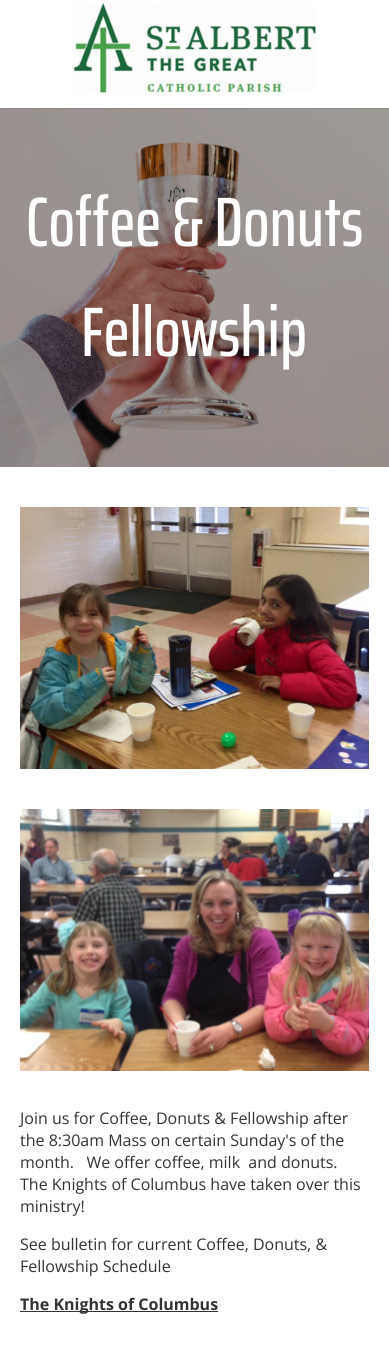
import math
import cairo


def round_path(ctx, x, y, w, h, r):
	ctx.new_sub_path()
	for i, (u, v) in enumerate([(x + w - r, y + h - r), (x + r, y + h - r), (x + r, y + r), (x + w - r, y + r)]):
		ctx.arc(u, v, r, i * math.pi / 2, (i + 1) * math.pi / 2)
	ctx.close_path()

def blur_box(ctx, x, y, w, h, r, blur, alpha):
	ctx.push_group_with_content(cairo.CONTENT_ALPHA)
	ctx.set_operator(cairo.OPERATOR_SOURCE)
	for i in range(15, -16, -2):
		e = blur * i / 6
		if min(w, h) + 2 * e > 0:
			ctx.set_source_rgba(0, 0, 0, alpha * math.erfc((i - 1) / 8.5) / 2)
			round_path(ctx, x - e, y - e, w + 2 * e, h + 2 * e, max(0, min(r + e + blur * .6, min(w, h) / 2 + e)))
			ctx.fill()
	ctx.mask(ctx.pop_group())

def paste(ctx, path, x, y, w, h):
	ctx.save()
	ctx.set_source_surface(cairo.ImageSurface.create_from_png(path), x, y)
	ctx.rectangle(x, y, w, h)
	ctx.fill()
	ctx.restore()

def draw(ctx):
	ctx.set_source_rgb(1, 1, 1)
	ctx.paint()
	paste(ctx, 'media/2.png', 0, 108, 389, 359)
	ctx.set_source_rgb(0, 0, 0)
	blur_box(ctx, 1, 1, 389, 108, 0, 0.5, 0.1)
	ctx.set_source_rgb(1, 1, 1)
	ctx.rectangle(0, 0, 389, 108)
	ctx.fill()
	paste(ctx, 'media/1.png', 73, 3, 243, 90)
	ctx.select_font_face('Saira ExtraCondensed Medium')
	ctx.set_font_size(70)
	ctx.move_to(26, 246)
	ctx.show_text('Coffee & Donuts')
	ctx.move_to(81, 356)
	ctx.show_text('Fellowship')
	paste(ctx, 'media/3.png', 20, 507, 349, 262)
	paste(ctx, 'media/4.png', 20, 809, 349, 262)
	ctx.select_font_face('Open Sans')
	ctx.set_font_size(16)
	ctx.set_source_rgb(0.2, 0.2, 0.2)
	for x, y, s in [
		(20, 1124, 'Join us for Coffee, Donuts & Fellowship after'),
		(20, 1146, 'the 8:30am Mass on certain Sunday\'s of the'),
		(20, 1168, 'month.   We offer coffee, milk  and donuts.'),
		(20, 1190, 'The Knights of Columbus have taken over this'),
		(20, 1212, 'ministry!'),
		(20, 1250, 'See bulletin for current Coffee, Donuts, &'),
		(20, 1272, 'Fellowship Schedule'),
	]:
		ctx.move_to(x, y)
		ctx.show_text(s)
	ctx.rectangle(20, 1311, 198, 1)
	ctx.fill()
	ctx.select_font_face('Open Sans', cairo.FONT_SLANT_NORMAL, cairo.FONT_WEIGHT_BOLD)
	ctx.move_to(20, 1310)
	ctx.show_text('The Knights of Columbus')


surface = cairo.ImageSurface(cairo.FORMAT_RGB24, 389, 1363)
ctx = cairo.Context(surface)
options = cairo.FontOptions()
options.set_hint_metrics(cairo.HINT_METRICS_OFF)
options.set_hint_style(cairo.HINT_STYLE_NONE)
ctx.set_font_options(options)
ctx.set_miter_limit(4)
draw(ctx)
surface.write_to_png('image.png')
